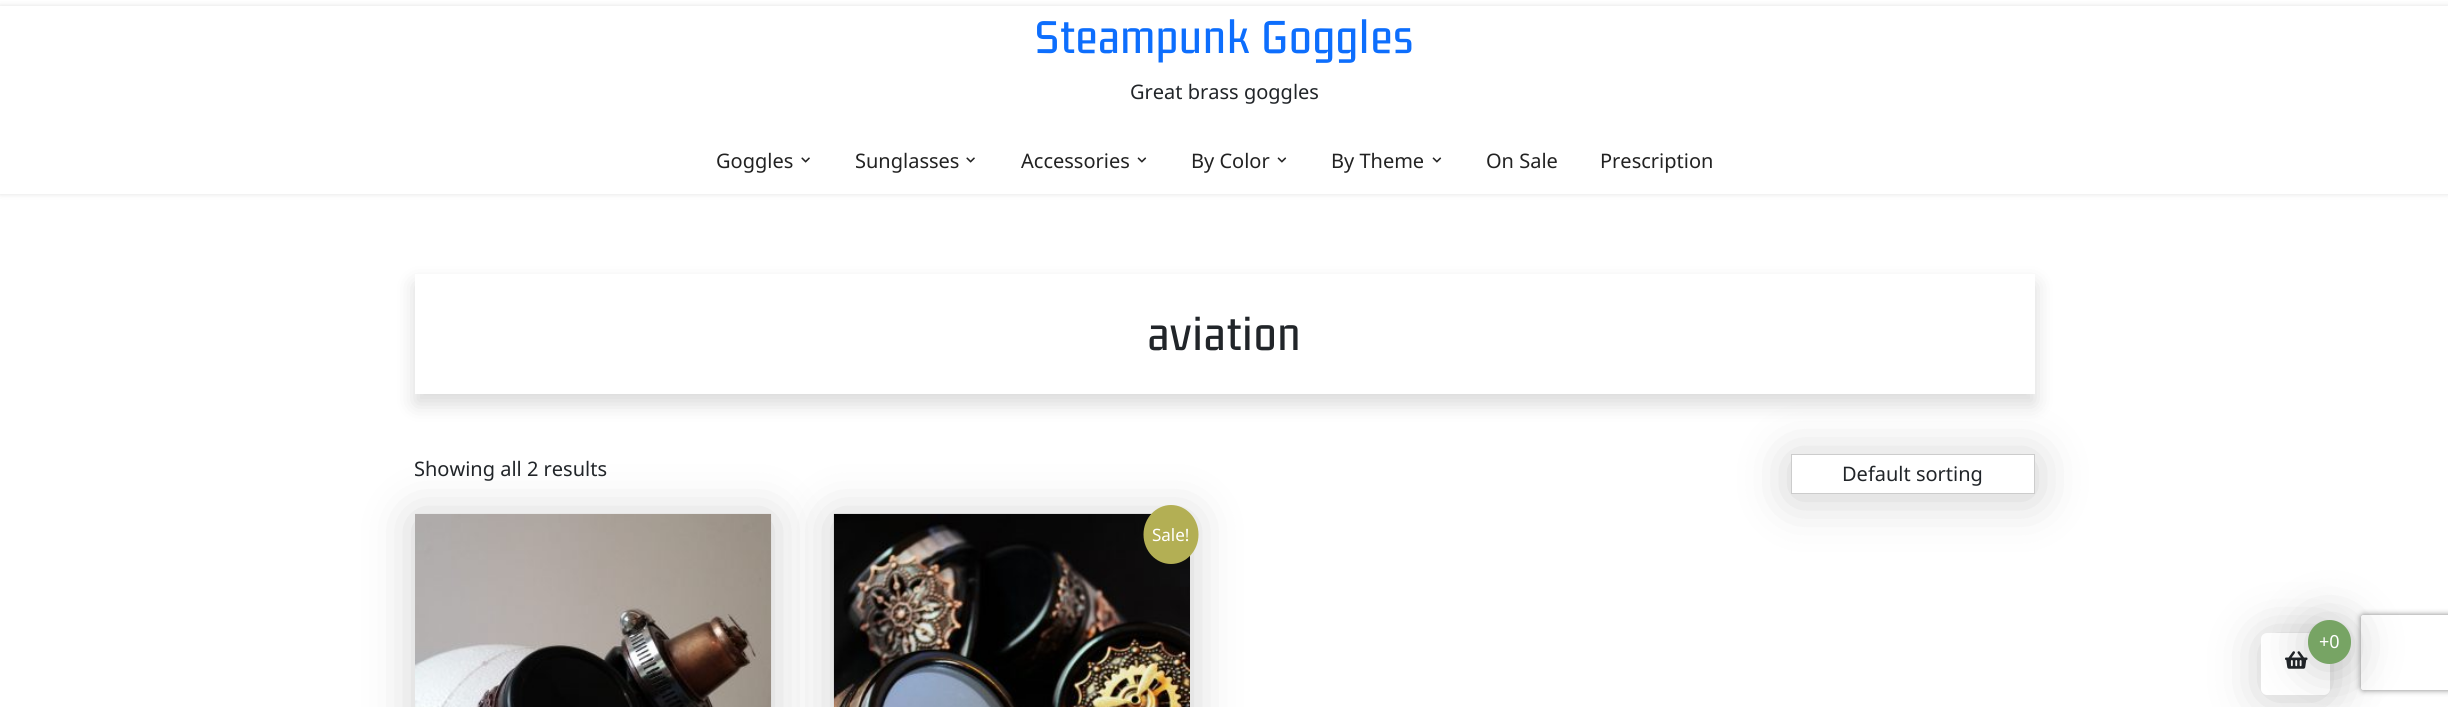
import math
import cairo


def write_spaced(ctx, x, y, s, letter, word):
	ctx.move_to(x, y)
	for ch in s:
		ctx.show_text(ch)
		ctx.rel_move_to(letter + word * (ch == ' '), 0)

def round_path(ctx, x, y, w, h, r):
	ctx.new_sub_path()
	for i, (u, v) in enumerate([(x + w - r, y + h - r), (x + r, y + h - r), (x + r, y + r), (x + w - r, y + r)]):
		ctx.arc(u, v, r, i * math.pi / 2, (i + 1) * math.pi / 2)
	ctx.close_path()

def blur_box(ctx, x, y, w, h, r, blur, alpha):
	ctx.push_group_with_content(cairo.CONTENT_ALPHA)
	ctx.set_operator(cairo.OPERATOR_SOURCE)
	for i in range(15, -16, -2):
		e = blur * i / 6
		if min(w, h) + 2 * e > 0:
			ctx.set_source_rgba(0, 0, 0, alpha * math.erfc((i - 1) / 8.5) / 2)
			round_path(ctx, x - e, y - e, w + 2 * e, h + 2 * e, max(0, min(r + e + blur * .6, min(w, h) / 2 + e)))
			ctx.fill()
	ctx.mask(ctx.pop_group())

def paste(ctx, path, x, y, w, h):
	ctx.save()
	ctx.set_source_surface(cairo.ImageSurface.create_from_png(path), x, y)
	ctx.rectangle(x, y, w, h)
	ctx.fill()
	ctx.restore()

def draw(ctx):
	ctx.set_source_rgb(1, 1, 1)
	ctx.paint()
	ctx.set_source_rgb(0, 0, 0)
	blur_box(ctx, 0, 6, 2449, 188, 0, 3, 0.12)
	ctx.set_source_rgb(1, 1, 1)
	ctx.rectangle(0, 6, 2448, 188)
	ctx.fill()
	ctx.select_font_face('Gemunu Libre Medium')
	ctx.set_font_size(50)
	ctx.set_source_rgb(0.051, 0.431, 0.992)
	write_spaced(ctx, 1035, 53, 'Steampunk Goggles', 1.25, 0)
	ctx.select_font_face('Noto Sans')
	ctx.set_font_size(20)
	ctx.set_source_rgb(0.129, 0.145, 0.161)
	ctx.move_to(1130, 99)
	ctx.show_text('Great brass goggles')
	ctx.set_source_rgb(0.133, 0.133, 0.133)
	ctx.move_to(716, 168)
	ctx.show_text('Goggles')
	paste(ctx, 'media/1.png', 801, 157, 9, 6)
	ctx.move_to(855, 168)
	ctx.show_text('Sunglasses')
	paste(ctx, 'media/1.png', 966, 157, 9, 6)
	ctx.move_to(1021, 168)
	ctx.show_text('Accessories')
	paste(ctx, 'media/2.png', 1137, 157, 10, 6)
	ctx.move_to(1191, 168)
	ctx.show_text('By Color')
	paste(ctx, 'media/2.png', 1277, 157, 10, 6)
	ctx.move_to(1331, 168)
	ctx.show_text('By Theme')
	paste(ctx, 'media/2.png', 1432, 157, 10, 6)
	ctx.move_to(1486, 168)
	ctx.show_text('On Sale')
	ctx.move_to(1600, 168)
	ctx.show_text('Prescription')
	ctx.save()
	ctx.set_fill_rule(cairo.FILL_RULE_EVEN_ODD)
	ctx.new_path()
	ctx.move_to(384, 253)
	ctx.line_to(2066, 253)
	ctx.line_to(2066, 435)
	ctx.line_to(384, 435)
	ctx.close_path()
	ctx.move_to(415, 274)
	ctx.line_to(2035, 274)
	ctx.line_to(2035, 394)
	ctx.line_to(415, 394)
	ctx.close_path()
	ctx.clip()
	ctx.set_source_rgb(0, 0, 0)
	blur_box(ctx, 415, 284, 1620, 120, 0, 10, 0.15)
	ctx.restore()
	ctx.select_font_face('Gemunu Libre Medium')
	ctx.set_font_size(50)
	ctx.set_source_rgb(0.129, 0.145, 0.161)
	write_spaced(ctx, 1148, 350, 'aviation', 1.25, 0)
	ctx.select_font_face('Noto Sans')
	ctx.set_font_size(20)
	ctx.move_to(414, 476)
	ctx.show_text('Showing all 2 results')
	ctx.save()
	ctx.set_fill_rule(cairo.FILL_RULE_EVEN_ODD)
	ctx.new_path()
	ctx.move_to(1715, 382)
	ctx.line_to(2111, 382)
	ctx.line_to(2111, 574)
	ctx.line_to(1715, 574)
	ctx.close_path()
	ctx.move_to(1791, 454)
	ctx.line_to(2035, 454)
	ctx.line_to(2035, 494)
	ctx.line_to(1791, 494)
	ctx.close_path()
	ctx.clip()
	ctx.set_source_rgb(0, 0, 0)
	blur_box(ctx, 1791, 458, 244, 40, 0, 25, 0.2)
	ctx.restore()
	ctx.rectangle(1791.5, 454.5, 243, 39)
	ctx.set_source_rgb(0.8, 0.8, 0.8)
	ctx.set_line_width(1)
	ctx.stroke()
	ctx.set_source_rgb(0.129, 0.145, 0.161)
	ctx.move_to(1842, 481)
	ctx.show_text('Default sorting')
	ctx.set_source_rgb(0, 0, 0)
	blur_box(ctx, 415, 518, 356, 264, 0, 25, 0.2)
	paste(ctx, 'media/3.png', 415, 513, 357, 194)
	blur_box(ctx, 834, 518, 356, 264, 0, 25, 0.2)
	paste(ctx, 'media/4.png', 833, 513, 357, 194)
	ctx.set_source_rgb(0.702, 0.686, 0.329)
	ctx.new_path()
	ctx.move_to(1171, 505)
	ctx.curve_to(1186, 505, 1198.5, 518, 1198.5, 534.5)
	ctx.curve_to(1198.5, 551, 1186, 564, 1171, 564)
	ctx.curve_to(1156, 564, 1143.5, 551, 1143.5, 534.5)
	ctx.curve_to(1143.5, 518, 1156, 505, 1171, 505)
	ctx.close_path()
	ctx.fill()
	ctx.set_font_size(17)
	ctx.set_source_rgb(1, 1, 1)
	ctx.move_to(1152, 541)
	ctx.show_text('Sale!')
	ctx.set_source_rgb(0, 0, 0)
	blur_box(ctx, 2261, 636, 69, 63, 6, 25, 0.2)
	ctx.set_source_rgb(1, 1, 1)
	round_path(ctx, 2261, 633, 69, 62, 6)
	ctx.fill()
	paste(ctx, 'media/5.png', 2285, 651, 23, 18)
	ctx.set_source_rgb(0, 0, 0)
	blur_box(ctx, 2308, 624, 43, 44, 21.5, 25, 0.2)
	ctx.set_source_rgb(0.467, 0.643, 0.392)
	round_path(ctx, 2308, 620, 43, 44, 21.5)
	ctx.fill()
	ctx.set_font_size(18)
	ctx.set_source_rgb(1, 1, 1)
	ctx.move_to(2319, 648)
	ctx.show_text('+0')
	ctx.save()
	ctx.set_fill_rule(cairo.FILL_RULE_EVEN_ODD)
	ctx.new_path()
	ctx.move_to(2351, 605)
	ctx.line_to(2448, 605)
	ctx.line_to(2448, 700)
	ctx.line_to(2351, 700)
	ctx.close_path()
	ctx.move_to(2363.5, 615)
	ctx.line_to(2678.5, 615)
	ctx.curve_to(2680, 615, 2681, 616, 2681, 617.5)
	ctx.line_to(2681, 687.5)
	ctx.curve_to(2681, 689, 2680, 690, 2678.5, 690)
	ctx.line_to(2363.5, 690)
	ctx.curve_to(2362, 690, 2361, 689, 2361, 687.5)
	ctx.line_to(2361, 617.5)
	ctx.curve_to(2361, 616, 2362, 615, 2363.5, 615)
	ctx.close_path()
	ctx.clip()
	ctx.set_source_rgb(0.502, 0.502, 0.502)
	blur_box(ctx, 2361, 615, 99, 75, 2.5, 3, 1)
	ctx.restore()


surface = cairo.ImageSurface(cairo.FORMAT_RGB24, 2448, 707)
ctx = cairo.Context(surface)
options = cairo.FontOptions()
options.set_hint_metrics(cairo.HINT_METRICS_OFF)
options.set_hint_style(cairo.HINT_STYLE_NONE)
ctx.set_font_options(options)
ctx.set_miter_limit(4)
draw(ctx)
surface.write_to_png('image.png')
